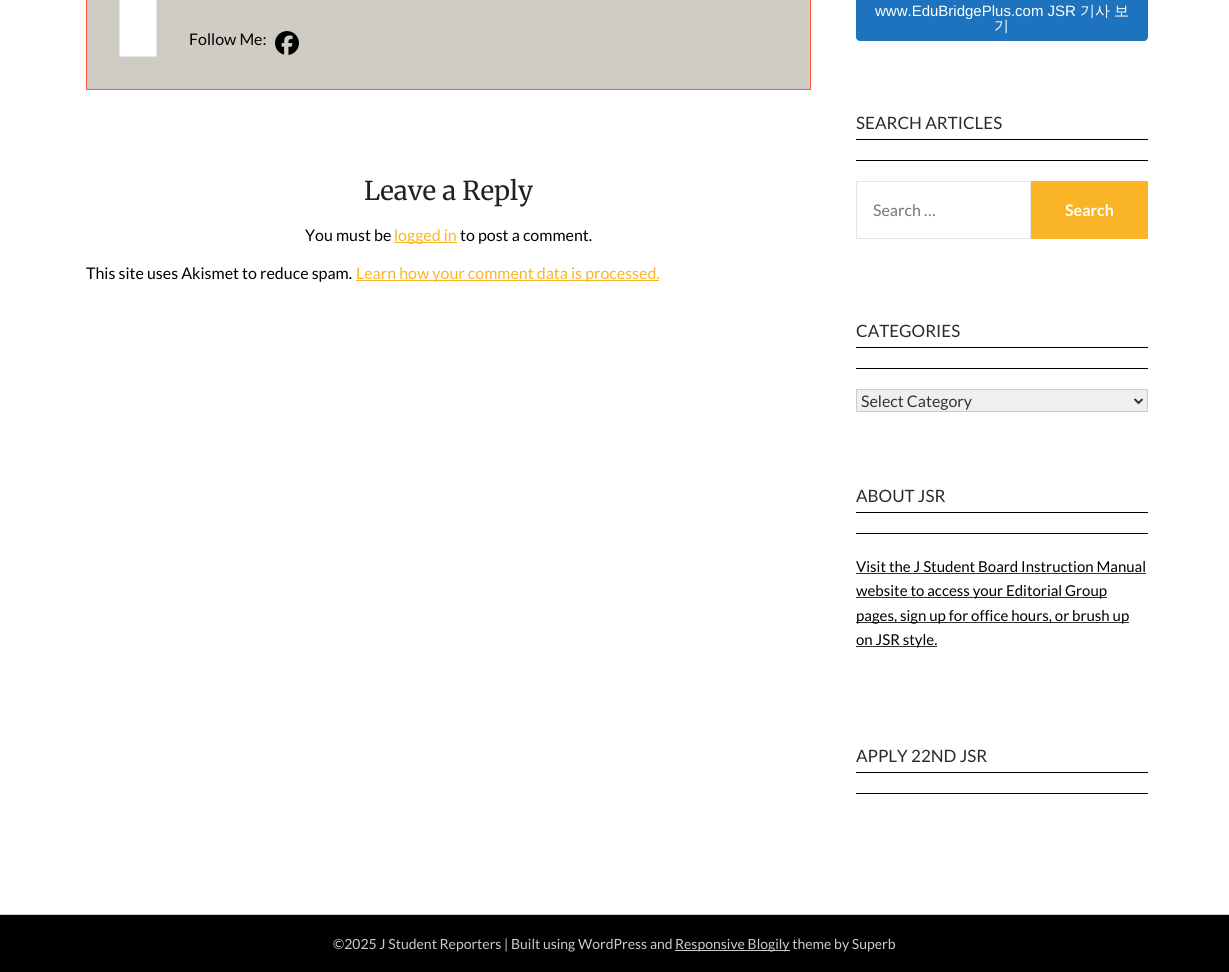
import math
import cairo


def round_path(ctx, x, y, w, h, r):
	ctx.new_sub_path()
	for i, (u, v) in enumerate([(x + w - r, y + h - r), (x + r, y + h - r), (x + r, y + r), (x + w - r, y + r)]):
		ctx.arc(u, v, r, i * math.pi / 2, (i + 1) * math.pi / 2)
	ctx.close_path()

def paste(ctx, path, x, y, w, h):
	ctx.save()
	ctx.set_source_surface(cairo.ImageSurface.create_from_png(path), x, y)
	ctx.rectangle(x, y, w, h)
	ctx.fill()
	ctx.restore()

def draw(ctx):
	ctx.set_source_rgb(1, 1, 1)
	ctx.paint()
	ctx.set_source_rgb(0.812, 0.8, 0.769)
	ctx.rectangle(86.5, -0.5, 724, 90)
	ctx.fill_preserve()
	ctx.set_source_rgb(1, 0.341, 0.2)
	ctx.set_line_width(1)
	ctx.stroke()
	ctx.set_source_rgb(1, 1, 1)
	ctx.rectangle(119.5, -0.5, 37, 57)
	ctx.fill_preserve()
	ctx.set_source_rgb(0.906, 0.906, 0.906)
	ctx.stroke()
	ctx.select_font_face('Lato')
	ctx.set_font_size(16)
	ctx.set_source_rgb(0, 0, 0)
	ctx.move_to(189, 45)
	ctx.show_text('Follow Me:')
	paste(ctx, 'media/1.png', 275, 31, 24, 24)
	ctx.select_font_face('Merriweather')
	ctx.set_font_size(26)
	ctx.set_source_rgb(0.133, 0.133, 0.133)
	ctx.move_to(364, 200)
	ctx.show_text('Leave a Reply')
	ctx.select_font_face('Lato')
	ctx.set_font_size(16)
	ctx.set_source_rgb(0, 0, 0)
	ctx.move_to(305, 241)
	ctx.show_text('You must be')
	ctx.set_source_rgb(0.98, 0.71, 0.149)
	ctx.rectangle(394, 242, 63, 1)
	ctx.fill()
	ctx.move_to(394, 241)
	ctx.show_text('logged in')
	ctx.set_source_rgb(0, 0, 0)
	ctx.move_to(460, 241)
	ctx.show_text('to post a comment.')
	ctx.move_to(86, 279)
	ctx.show_text('This site uses Akismet to reduce spam.')
	ctx.set_source_rgb(0.98, 0.71, 0.149)
	ctx.rectangle(356, 280, 303, 1)
	ctx.fill()
	ctx.move_to(356, 279)
	ctx.show_text('Learn how your comment data is processed.')
	ctx.set_source_rgb(0.118, 0.451, 0.745)
	round_path(ctx, 856.5, -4.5, 291, 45, 3.5)
	ctx.fill_preserve()
	ctx.stroke()
	ctx.select_font_face('Liberation Sans')
	ctx.set_font_size(15)
	ctx.set_source_rgb(1, 1, 1)
	ctx.move_to(875, 16)
	ctx.show_text('www.EduBridgePlus.com JSR')
	ctx.select_font_face('WenQuanYi Zen Hei Medium')
	for x, y, s in [
		(1080, 16, '기사'),
		(1114, 16, '보'),
		(994, 31, '기'),
	]:
		ctx.move_to(x, y)
		ctx.show_text(s)
	ctx.set_source_rgb(0, 0, 0)
	ctx.rectangle(856, 160, 292, 1)
	ctx.fill()
	ctx.rectangle(856, 139, 292, 1)
	ctx.fill()
	ctx.select_font_face('Lato')
	ctx.set_font_size(17)
	ctx.set_source_rgb(0.169, 0.169, 0.169)
	ctx.move_to(856, 129)
	ctx.show_text('SEARCH ARTICLES')
	ctx.rectangle(856.5, 181.5, 174, 57)
	ctx.set_source_rgb(0.898, 0.902, 0.914)
	ctx.stroke()
	ctx.set_font_size(16)
	ctx.set_source_rgb(0.459, 0.459, 0.459)
	ctx.move_to(873, 216)
	ctx.show_text('Search …')
	ctx.set_source_rgb(0.98, 0.71, 0.149)
	ctx.rectangle(1031, 181, 117, 58)
	ctx.fill()
	ctx.select_font_face('Lato', cairo.FONT_SLANT_NORMAL, cairo.FONT_WEIGHT_BOLD)
	ctx.set_source_rgb(1, 1, 1)
	ctx.move_to(1065, 216)
	ctx.show_text('Search')
	ctx.set_source_rgb(0, 0, 0)
	ctx.rectangle(856, 368, 292, 1)
	ctx.fill()
	ctx.rectangle(856, 347, 292, 1)
	ctx.fill()
	ctx.select_font_face('Lato')
	ctx.set_font_size(17)
	ctx.set_source_rgb(0.169, 0.169, 0.169)
	ctx.move_to(856, 337)
	ctx.show_text('CATEGORIES')
	ctx.set_source_rgb(0.937, 0.937, 0.937)
	ctx.rectangle(856.5, 389.5, 291, 22)
	ctx.fill_preserve()
	ctx.set_source_rgb(0.8, 0.8, 0.8)
	ctx.stroke()
	ctx.new_path()
	ctx.move_to(1134.5, 399)
	ctx.line_to(1138.5, 403)
	ctx.line_to(1142.5, 399)
	ctx.set_source_rgb(0.2, 0.2, 0.2)
	ctx.set_line_width(2)
	ctx.stroke()
	ctx.set_font_size(16)
	ctx.move_to(861, 407)
	ctx.show_text('Select Category')
	ctx.set_source_rgb(0, 0, 0)
	ctx.rectangle(856, 533, 292, 1)
	ctx.fill()
	ctx.rectangle(856, 512, 292, 1)
	ctx.fill()
	ctx.set_font_size(17)
	ctx.set_source_rgb(0.169, 0.169, 0.169)
	ctx.move_to(856, 502)
	ctx.show_text('ABOUT JSR')
	ctx.set_font_size(15)
	ctx.set_source_rgb(0, 0, 0)
	ctx.move_to(856, 572)
	ctx.show_text('Visit the J Student Board Instruction Manual')
	ctx.set_source_rgb(0.2, 0.2, 0.2)
	ctx.rectangle(856, 573, 290, 1)
	ctx.fill()
	ctx.rectangle(856, 597, 251, 1)
	ctx.fill()
	ctx.set_source_rgb(0, 0, 0)
	ctx.move_to(856, 596)
	ctx.show_text('website to access your Editorial Group')
	ctx.set_source_rgb(0.2, 0.2, 0.2)
	ctx.rectangle(856, 622, 273, 1)
	ctx.fill()
	ctx.set_source_rgb(0, 0, 0)
	ctx.move_to(856, 621)
	ctx.show_text('pages, sign up for office hours, or brush up')
	ctx.set_source_rgb(0.2, 0.2, 0.2)
	ctx.rectangle(856, 646, 81, 1)
	ctx.fill()
	ctx.set_source_rgb(0, 0, 0)
	ctx.move_to(856, 645)
	ctx.show_text('on JSR style.')
	ctx.rectangle(856, 793, 292, 1)
	ctx.fill()
	ctx.rectangle(856, 772, 292, 1)
	ctx.fill()
	ctx.set_font_size(17)
	ctx.set_source_rgb(0.169, 0.169, 0.169)
	ctx.move_to(856, 762)
	ctx.show_text('APPLY 22ND JSR')
	ctx.set_source_rgb(0, 0, 0)
	ctx.rectangle(0, 915, 1229, 57)
	ctx.fill()
	ctx.set_source_rgb(0.8, 0.8, 0.8)
	ctx.rectangle(0, 914, 1229, 1)
	ctx.fill()
	ctx.set_font_size(14)
	ctx.move_to(333, 949)
	ctx.show_text('©2025 J Student Reporters | Built using WordPress and')
	ctx.rectangle(675, 950, 115, 1)
	ctx.fill()
	ctx.move_to(675, 949)
	ctx.show_text('Responsive Blogily theme by Superb')


surface = cairo.ImageSurface(cairo.FORMAT_RGB24, 1229, 972)
ctx = cairo.Context(surface)
options = cairo.FontOptions()
options.set_hint_metrics(cairo.HINT_METRICS_OFF)
options.set_hint_style(cairo.HINT_STYLE_NONE)
ctx.set_font_options(options)
ctx.set_miter_limit(4)
draw(ctx)
surface.write_to_png('image.png')
